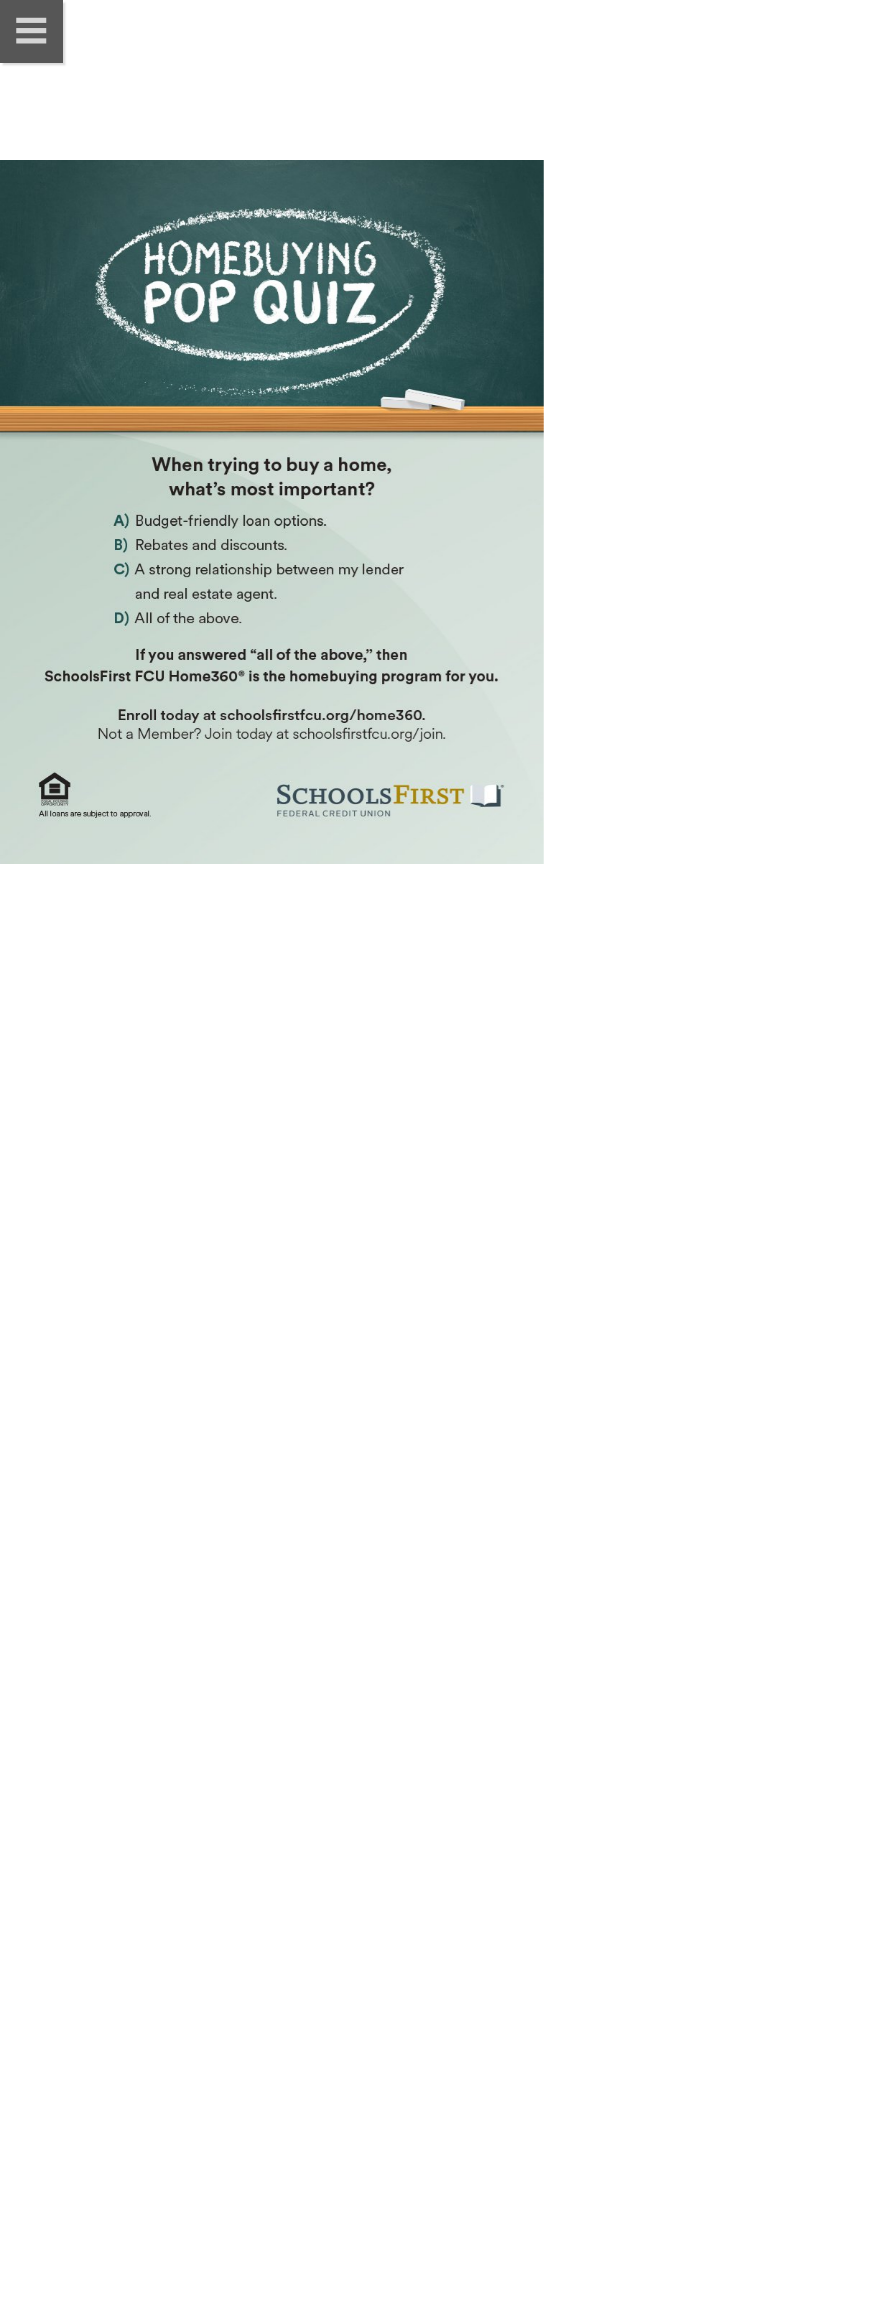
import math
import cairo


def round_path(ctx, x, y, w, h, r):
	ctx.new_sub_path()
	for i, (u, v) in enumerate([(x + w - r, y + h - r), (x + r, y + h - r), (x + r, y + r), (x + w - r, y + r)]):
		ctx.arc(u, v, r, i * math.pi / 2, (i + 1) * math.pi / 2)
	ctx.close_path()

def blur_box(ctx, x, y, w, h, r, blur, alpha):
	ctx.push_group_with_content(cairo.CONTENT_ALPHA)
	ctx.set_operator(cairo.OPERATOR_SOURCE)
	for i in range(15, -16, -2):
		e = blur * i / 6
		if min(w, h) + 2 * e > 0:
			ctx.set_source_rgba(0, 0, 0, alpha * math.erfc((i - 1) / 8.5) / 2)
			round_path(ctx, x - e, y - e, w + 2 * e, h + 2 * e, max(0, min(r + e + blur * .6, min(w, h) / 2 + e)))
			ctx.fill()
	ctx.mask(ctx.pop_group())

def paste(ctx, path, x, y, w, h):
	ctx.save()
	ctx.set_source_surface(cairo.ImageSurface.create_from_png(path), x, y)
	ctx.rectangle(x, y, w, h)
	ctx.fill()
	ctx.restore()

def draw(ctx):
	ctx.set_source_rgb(1, 1, 1)
	ctx.paint()
	ctx.set_source_rgb(0.851, 0.851, 0.851)
	blur_box(ctx, 3, 3, 62, 62, 0, 1, 1)
	ctx.set_source_rgb(0.337, 0.337, 0.337)
	ctx.rectangle(0, 0, 63, 63)
	ctx.fill()
	paste(ctx, 'media/1.png', 16, 17, 31, 27)
	paste(ctx, 'media/2.png', 0, 160, 544, 704)


surface = cairo.ImageSurface(cairo.FORMAT_RGB24, 869, 2324)
ctx = cairo.Context(surface)
options = cairo.FontOptions()
options.set_hint_metrics(cairo.HINT_METRICS_OFF)
options.set_hint_style(cairo.HINT_STYLE_NONE)
ctx.set_font_options(options)
ctx.set_miter_limit(4)
draw(ctx)
surface.write_to_png('image.png')
